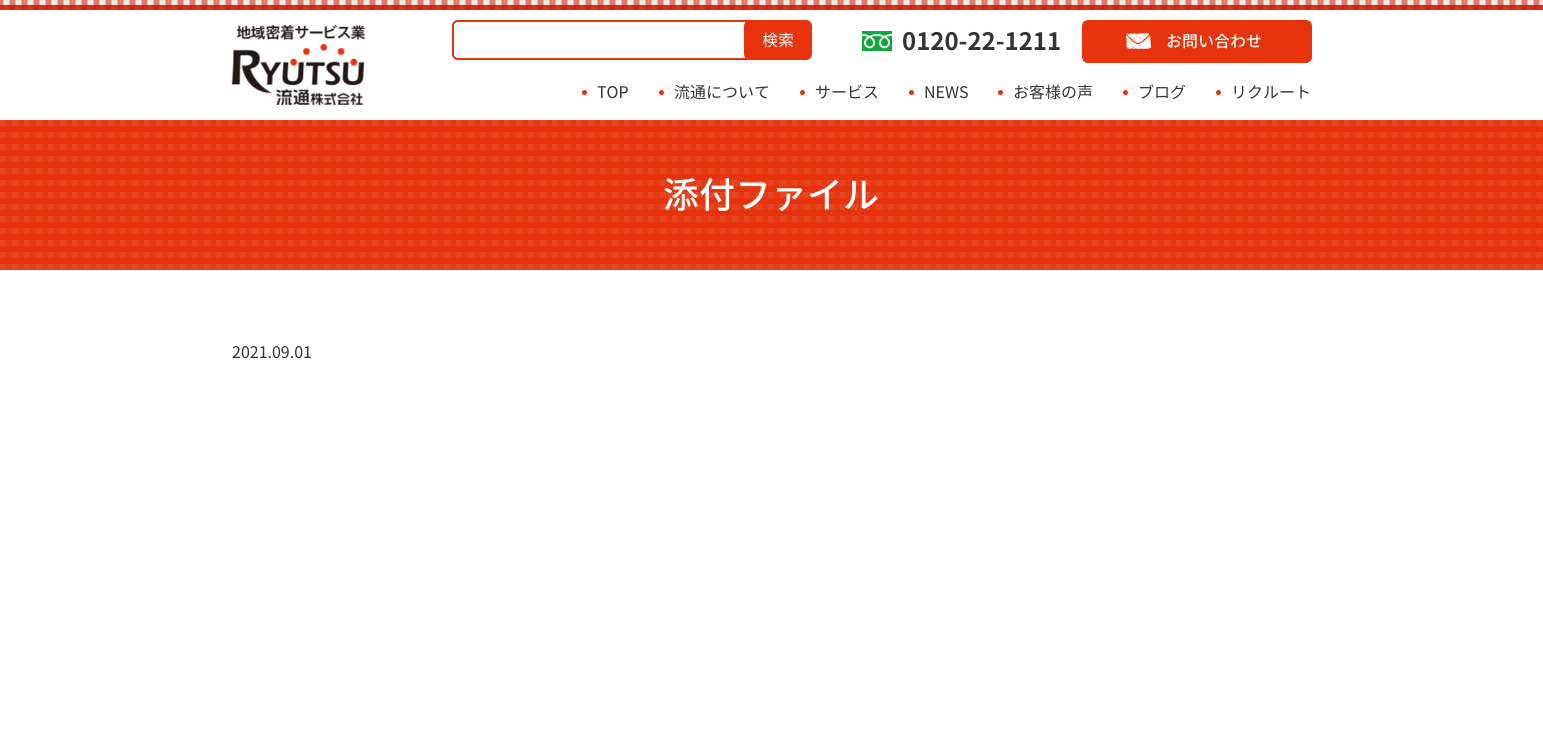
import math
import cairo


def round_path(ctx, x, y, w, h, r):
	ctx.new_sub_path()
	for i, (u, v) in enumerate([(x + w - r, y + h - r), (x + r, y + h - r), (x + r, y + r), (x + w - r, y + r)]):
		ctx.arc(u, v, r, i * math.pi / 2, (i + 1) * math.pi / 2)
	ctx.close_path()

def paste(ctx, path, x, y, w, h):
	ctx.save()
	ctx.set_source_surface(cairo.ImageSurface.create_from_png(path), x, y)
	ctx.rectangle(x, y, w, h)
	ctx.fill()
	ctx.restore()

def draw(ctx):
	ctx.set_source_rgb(1, 1, 1)
	ctx.paint()
	paste(ctx, 'media/1.png', 0, 0, 1543, 10)
	paste(ctx, 'media/2.png', 231, 25, 135, 80)
	round_path(ctx, 453, 21, 310, 38, 5)
	ctx.set_source_rgb(0.91, 0.204, 0.047)
	ctx.stroke()
	round_path(ctx, 745, 21, 66, 38, 5)
	ctx.fill_preserve()
	ctx.stroke()
	ctx.select_font_face('Noto Sans CJK JP')
	ctx.set_font_size(16)
	ctx.set_source_rgb(1, 1, 1)
	ctx.move_to(762, 46)
	ctx.show_text('検索')
	paste(ctx, 'media/3.png', 862, 31, 30, 20)
	ctx.select_font_face('Noto Sans CJK JP', cairo.FONT_SLANT_NORMAL, cairo.FONT_WEIGHT_BOLD)
	ctx.set_font_size(24)
	ctx.set_source_rgb(0.2, 0.2, 0.2)
	ctx.move_to(902, 50)
	ctx.show_text('0120-22-1211')
	ctx.set_source_rgb(0.91, 0.204, 0.047)
	round_path(ctx, 1082, 20, 230, 43, 6)
	ctx.fill()
	paste(ctx, 'media/4.png', 1126, 33, 25, 16)
	ctx.select_font_face('Noto Sans CJK JP Medium')
	ctx.set_font_size(16)
	ctx.set_source_rgb(1, 1, 1)
	ctx.move_to(1166, 47)
	ctx.show_text('お問い合わせ')
	ctx.set_source_rgb(0.91, 0.204, 0.047)
	ctx.new_path()
	ctx.arc(584.5, 92.5, 2.5, 0, 2 * math.pi)
	ctx.fill()
	ctx.select_font_face('Noto Sans CJK JP')
	ctx.set_source_rgb(0.2, 0.2, 0.2)
	ctx.move_to(597, 98)
	ctx.show_text('TOP')
	ctx.set_source_rgb(0.91, 0.204, 0.047)
	ctx.new_path()
	ctx.arc(661.5, 92.5, 2.5, 0, 2 * math.pi)
	ctx.fill()
	ctx.set_source_rgb(0.2, 0.2, 0.2)
	ctx.move_to(674, 98)
	ctx.show_text('流通について')
	ctx.set_source_rgb(0.91, 0.204, 0.047)
	ctx.new_path()
	ctx.arc(802.5, 92.5, 2.5, 0, 2 * math.pi)
	ctx.fill()
	ctx.set_source_rgb(0.2, 0.2, 0.2)
	ctx.move_to(815, 98)
	ctx.show_text('サービス')
	ctx.set_source_rgb(0.91, 0.204, 0.047)
	ctx.new_path()
	ctx.arc(911.5, 92.5, 2.5, 0, 2 * math.pi)
	ctx.fill()
	ctx.set_source_rgb(0.2, 0.2, 0.2)
	ctx.move_to(924, 98)
	ctx.show_text('NEWS')
	ctx.set_source_rgb(0.91, 0.204, 0.047)
	ctx.new_path()
	ctx.arc(1000.5, 92.5, 2.5, 0, 2 * math.pi)
	ctx.fill()
	ctx.set_source_rgb(0.2, 0.2, 0.2)
	ctx.move_to(1013, 98)
	ctx.show_text('お客様の声')
	ctx.set_source_rgb(0.91, 0.204, 0.047)
	ctx.new_path()
	ctx.arc(1125.5, 92.5, 2.5, 0, 2 * math.pi)
	ctx.fill()
	ctx.set_source_rgb(0.2, 0.2, 0.2)
	ctx.move_to(1138, 98)
	ctx.show_text('ブログ')
	ctx.set_source_rgb(0.91, 0.204, 0.047)
	ctx.new_path()
	ctx.arc(1218.5, 92.5, 2.5, 0, 2 * math.pi)
	ctx.fill()
	ctx.set_source_rgb(0.2, 0.2, 0.2)
	ctx.move_to(1231, 98)
	ctx.show_text('リクルート')
	paste(ctx, 'media/5.png', 0, 120, 1543, 150)
	ctx.select_font_face('Noto Sans CJK JP Medium')
	ctx.set_font_size(36)
	ctx.set_source_rgb(1, 1, 1)
	ctx.move_to(663, 208)
	ctx.show_text('添付ファイル')
	ctx.select_font_face('Noto Sans CJK JP')
	ctx.set_font_size(16)
	ctx.set_source_rgb(0.2, 0.2, 0.2)
	ctx.move_to(232, 358)
	ctx.show_text('2021.09.01')


surface = cairo.ImageSurface(cairo.FORMAT_RGB24, 1543, 746)
ctx = cairo.Context(surface)
options = cairo.FontOptions()
options.set_hint_metrics(cairo.HINT_METRICS_OFF)
options.set_hint_style(cairo.HINT_STYLE_NONE)
ctx.set_font_options(options)
ctx.set_miter_limit(4)
draw(ctx)
surface.write_to_png('image.png')
